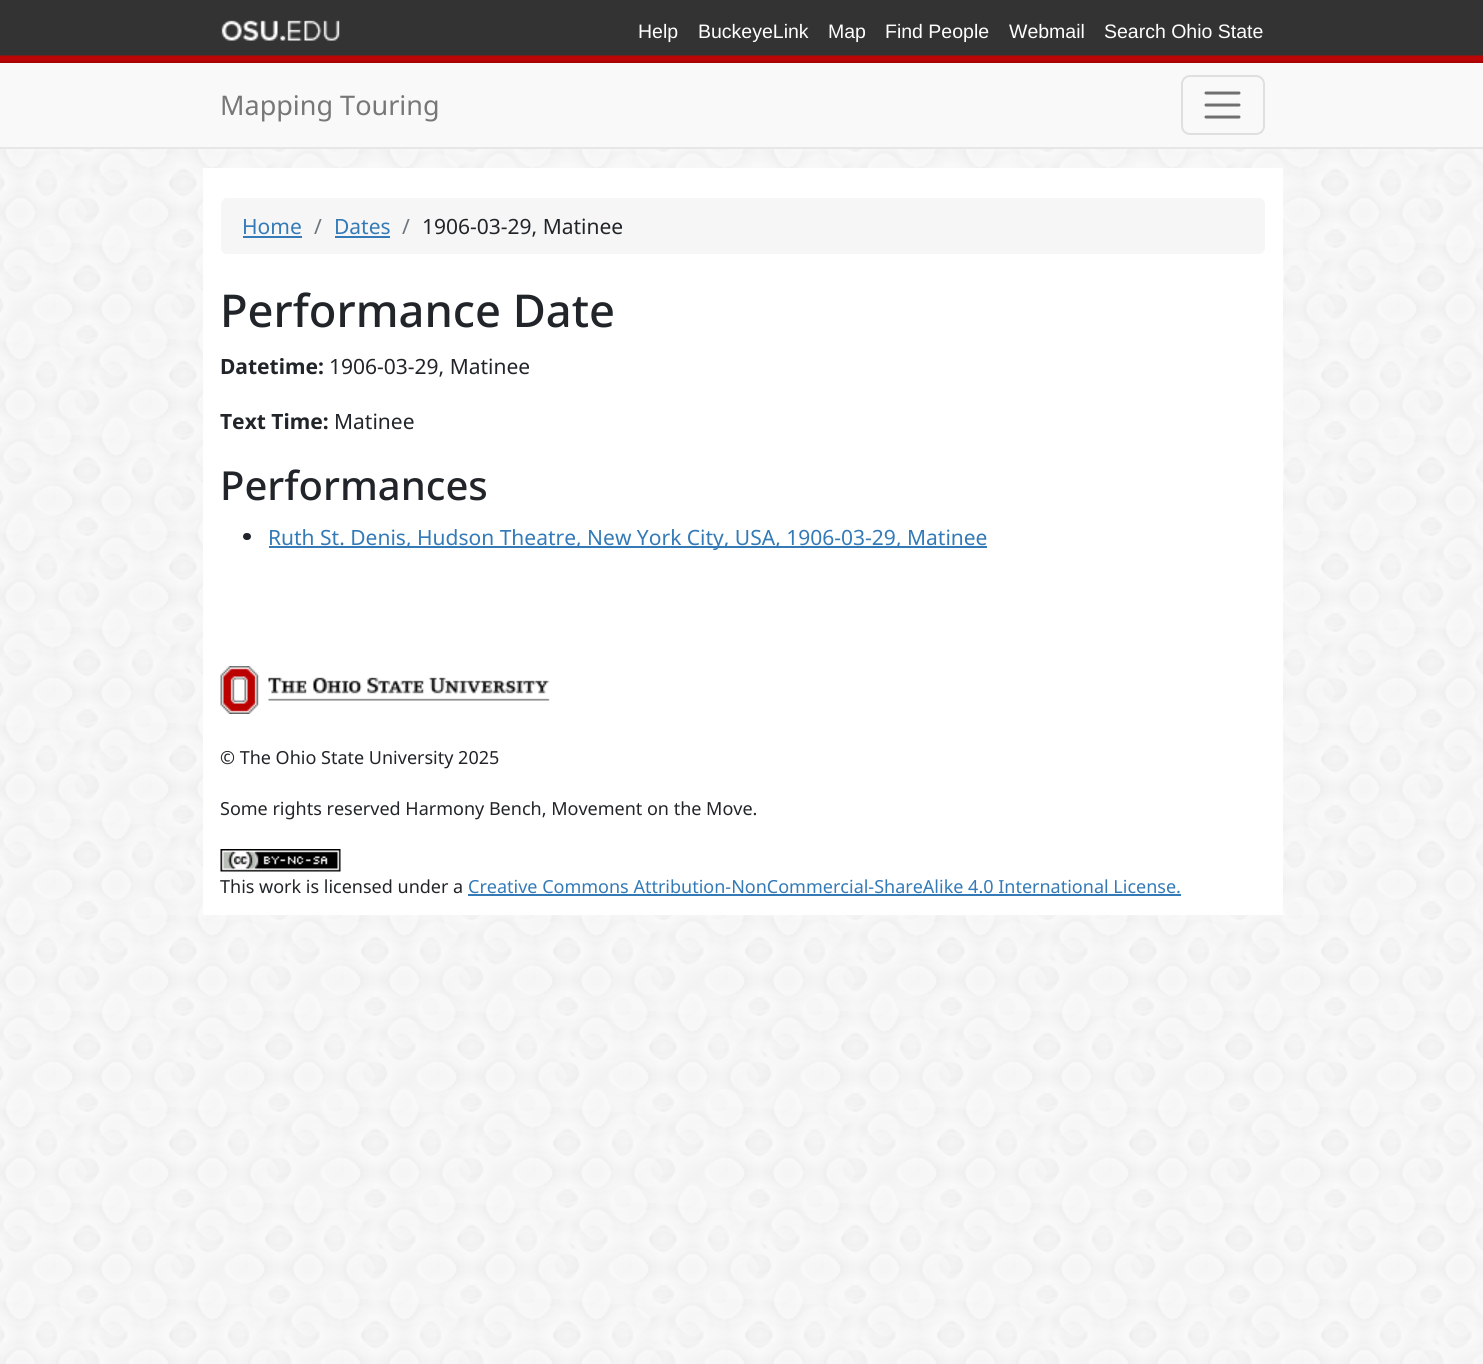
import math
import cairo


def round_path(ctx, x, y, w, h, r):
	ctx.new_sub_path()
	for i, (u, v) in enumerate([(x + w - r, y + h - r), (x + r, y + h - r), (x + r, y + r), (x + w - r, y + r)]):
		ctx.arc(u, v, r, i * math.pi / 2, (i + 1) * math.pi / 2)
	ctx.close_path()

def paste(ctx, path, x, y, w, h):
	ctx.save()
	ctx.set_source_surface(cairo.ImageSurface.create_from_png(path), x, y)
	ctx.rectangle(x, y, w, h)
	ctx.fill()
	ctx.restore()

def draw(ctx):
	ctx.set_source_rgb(1, 1, 1)
	ctx.paint()
	paste(ctx, 'media/1.png', 0, 149, 1483, 1215)
	ctx.set_source_rgb(0.2, 0.2, 0.2)
	ctx.rectangle(0, 0, 1483, 56)
	ctx.fill()
	paste(ctx, 'media/2.png', 0, 55, 1483, 8)
	paste(ctx, 'media/3.png', 221, 20, 119, 21)
	ctx.select_font_face('Liberation Sans')
	ctx.set_font_size(19.5)
	ctx.set_source_rgb(1, 1, 1)
	for x, y, s in [
		(638, 38, 'Help'),
		(698, 38, 'BuckeyeLink'),
		(828, 38, 'Map'),
		(885, 38, 'Find People'),
		(1009, 38, 'Webmail'),
		(1104, 38, 'Search Ohio State'),
	]:
		ctx.move_to(x, y)
		ctx.show_text(s)
	ctx.set_source_rgb(0.973, 0.973, 0.973)
	ctx.rectangle(0, 63, 1483, 84)
	ctx.fill()
	ctx.set_source_rgb(0.906, 0.906, 0.906)
	ctx.rectangle(0, 147, 1483, 2)
	ctx.fill()
	ctx.select_font_face('Noto Sans')
	ctx.set_font_size(27)
	ctx.set_source_rgb(0.467, 0.467, 0.467)
	ctx.move_to(220, 115)
	ctx.show_text('Mapping Touring')
	round_path(ctx, 1182, 76, 82, 58, 8)
	ctx.set_source_rgb(0.875, 0.875, 0.875)
	ctx.stroke()
	ctx.new_path()
	ctx.move_to(1206, 93)
	ctx.line_to(1239, 93)
	ctx.move_to(1206, 105)
	ctx.line_to(1239, 105)
	ctx.move_to(1206, 117)
	ctx.line_to(1239, 117)
	ctx.set_source_rgb(0.439, 0.439, 0.439)
	ctx.set_line_width(3)
	ctx.set_line_cap(cairo.LINE_CAP_ROUND)
	ctx.stroke()
	ctx.set_source_rgb(1, 1, 1)
	ctx.rectangle(203, 168, 1080, 747)
	ctx.fill()
	ctx.set_source_rgb(0.961, 0.961, 0.961)
	round_path(ctx, 221, 198, 1044, 56, 6)
	ctx.fill()
	ctx.set_font_size(21)
	ctx.set_source_rgb(0.2, 0.478, 0.718)
	ctx.move_to(242, 234)
	ctx.show_text('Home')
	ctx.rectangle(243, 236, 59, 2)
	ctx.fill()
	ctx.set_source_rgb(0.424, 0.459, 0.49)
	ctx.move_to(314, 234)
	ctx.show_text('/')
	ctx.set_source_rgb(0.2, 0.478, 0.718)
	ctx.move_to(334, 234)
	ctx.show_text('Dates')
	ctx.rectangle(335, 236, 55, 2)
	ctx.fill()
	ctx.set_source_rgb(0.424, 0.459, 0.49)
	ctx.move_to(402, 234)
	ctx.show_text('/')
	ctx.set_source_rgb(0.129, 0.145, 0.161)
	ctx.move_to(422, 234)
	ctx.show_text('1906-03-29, Matinee')
	ctx.select_font_face('Noto Sans Medium')
	ctx.set_font_size(45.25)
	ctx.move_to(220, 327)
	ctx.show_text('Performance Date')
	ctx.select_font_face('Noto Sans', cairo.FONT_SLANT_NORMAL, cairo.FONT_WEIGHT_BOLD)
	ctx.set_font_size(21)
	ctx.move_to(220, 374)
	ctx.show_text('Datetime:')
	ctx.select_font_face('Noto Sans')
	ctx.move_to(329, 374)
	ctx.show_text('1906-03-29, Matinee')
	ctx.select_font_face('Noto Sans', cairo.FONT_SLANT_NORMAL, cairo.FONT_WEIGHT_BOLD)
	ctx.move_to(220, 429)
	ctx.show_text('Text Time:')
	ctx.select_font_face('Noto Sans')
	ctx.move_to(334, 429)
	ctx.show_text('Matinee')
	ctx.select_font_face('Noto Sans Medium')
	ctx.set_font_size(40)
	ctx.move_to(220, 500)
	ctx.show_text('Performances')
	round_path(ctx, 243, 533, 8, 7, 3.5)
	ctx.fill()
	ctx.set_source_rgb(0.2, 0.478, 0.718)
	ctx.rectangle(269, 546, 718, 2)
	ctx.fill()
	ctx.select_font_face('Noto Sans')
	ctx.set_font_size(21)
	ctx.move_to(268, 545)
	ctx.show_text('Ruth St. Denis, Hudson Theatre, New York City, USA, 1906-03-29, Matinee')
	paste(ctx, 'media/4.png', 220, 666, 330, 48)
	ctx.set_font_size(18)
	ctx.set_source_rgb(0.129, 0.145, 0.161)
	ctx.move_to(220, 764)
	ctx.show_text('© The Ohio State University 2025')
	ctx.move_to(220, 815)
	ctx.show_text('Some rights reserved Harmony Bench, Movement on the Move.')
	paste(ctx, 'media/5.png', 220, 849, 121, 23)
	ctx.move_to(220, 893)
	ctx.show_text('This work is licensed under a')
	ctx.set_source_rgb(0.2, 0.478, 0.718)
	ctx.move_to(468, 893)
	ctx.show_text('Creative Commons Attribution-NonCommercial-ShareAlike 4.0 International License.')
	ctx.rectangle(468, 894, 713, 2)
	ctx.fill()


surface = cairo.ImageSurface(cairo.FORMAT_RGB24, 1483, 1364)
ctx = cairo.Context(surface)
options = cairo.FontOptions()
options.set_hint_metrics(cairo.HINT_METRICS_OFF)
options.set_hint_style(cairo.HINT_STYLE_NONE)
ctx.set_font_options(options)
ctx.set_miter_limit(4)
draw(ctx)
surface.write_to_png('image.png')
